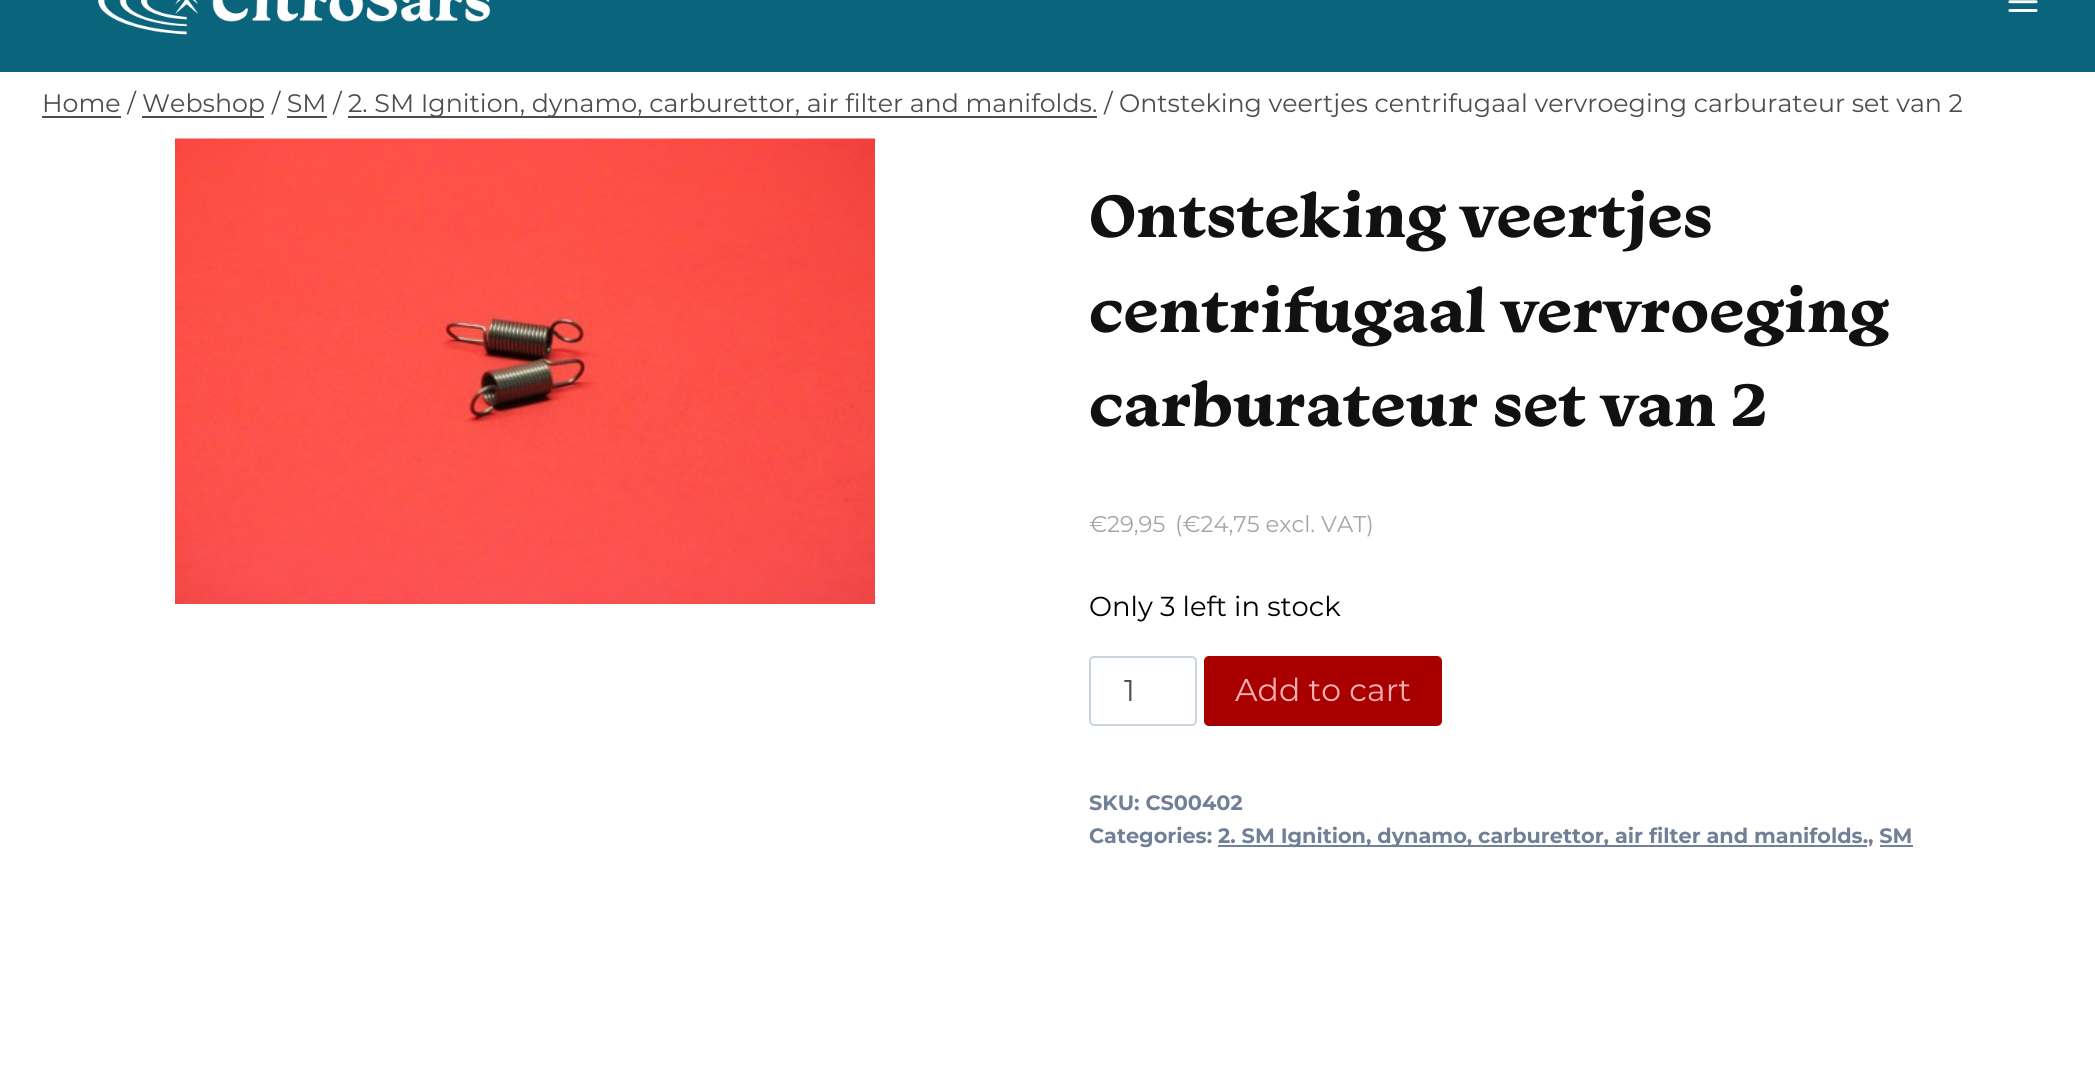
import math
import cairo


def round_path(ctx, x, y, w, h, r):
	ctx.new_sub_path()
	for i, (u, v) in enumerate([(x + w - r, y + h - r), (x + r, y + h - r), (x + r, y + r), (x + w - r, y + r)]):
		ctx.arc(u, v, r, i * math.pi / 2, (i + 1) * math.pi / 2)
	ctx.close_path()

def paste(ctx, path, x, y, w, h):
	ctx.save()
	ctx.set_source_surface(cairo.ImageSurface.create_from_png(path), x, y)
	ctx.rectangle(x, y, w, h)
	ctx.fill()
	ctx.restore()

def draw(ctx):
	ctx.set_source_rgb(1, 1, 1)
	ctx.paint()
	ctx.set_source_rgb(0.039, 0.392, 0.486)
	ctx.rectangle(0, 0, 2095, 72)
	ctx.fill()
	paste(ctx, 'media/1.png', 98, 0, 393, 35)
	paste(ctx, 'media/2.png', 2008, 0, 30, 12)
	ctx.select_font_face('Montserrat')
	ctx.set_font_size(25.3)
	ctx.set_source_rgb(0.302, 0.302, 0.302)
	ctx.move_to(42, 112)
	ctx.show_text('Home /')
	ctx.rectangle(42, 116, 79, 2)
	ctx.fill()
	ctx.rectangle(142, 116, 122, 2)
	ctx.fill()
	ctx.move_to(142, 112)
	ctx.show_text('Webshop / SM /')
	ctx.rectangle(348, 116, 749, 2)
	ctx.fill()
	ctx.move_to(348, 112)
	ctx.show_text('2. SM Ignition, dynamo, carburettor, air filter and manifolds. / Ontsteking veertjes centrifugaal vervroeging carburateur set van 2')
	ctx.rectangle(287, 116, 40, 2)
	ctx.fill()
	paste(ctx, 'media/3.png', 175, 138, 700, 466)
	ctx.select_font_face('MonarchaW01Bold', cairo.FONT_SLANT_NORMAL, cairo.FONT_WEIGHT_BOLD)
	ctx.set_font_size(63)
	ctx.set_source_rgb(0.067, 0.067, 0.067)
	for x, y, s in [
		(1089, 237, 'Ontsteking veertjes'),
		(1089, 332, 'centrifugaal vervroeging'),
		(1089, 426, 'carburateur set van 2'),
	]:
		ctx.move_to(x, y)
		ctx.show_text(s)
	ctx.select_font_face('Montserrat')
	ctx.set_font_size(22.75)
	ctx.set_source_rgb(0.647, 0.647, 0.647)
	ctx.move_to(1089, 532)
	ctx.show_text('€29,95')
	ctx.move_to(1175, 532)
	ctx.show_text('(€24,75 excl. VAT)')
	ctx.set_font_size(27.4)
	ctx.set_source_rgb(0, 0, 0)
	ctx.move_to(1089, 616)
	ctx.show_text('Only 3 left in stock')
	round_path(ctx, 1090, 657, 106, 68, 4)
	ctx.set_source_rgb(0.796, 0.835, 0.878)
	ctx.stroke()
	ctx.set_font_size(30)
	ctx.set_source_rgb(0.302, 0.302, 0.302)
	ctx.move_to(1124, 701)
	ctx.show_text('1')
	ctx.set_source_rgb(0.659, 0, 0)
	round_path(ctx, 1204, 656, 238, 70, 5)
	ctx.fill()
	ctx.set_font_size(31.5)
	ctx.set_source_rgb(0.969, 0.69, 0.69)
	ctx.move_to(1235, 701)
	ctx.show_text('Add to cart')
	ctx.select_font_face('Montserrat', cairo.FONT_SLANT_NORMAL, cairo.FONT_WEIGHT_BOLD)
	ctx.set_font_size(20.8)
	ctx.set_source_rgb(0.443, 0.502, 0.588)
	ctx.move_to(1089, 810)
	ctx.show_text('SKU: CS00402')
	ctx.move_to(1089, 843)
	ctx.show_text('Categories:')
	ctx.rectangle(1218, 845, 649, 2)
	ctx.fill()
	ctx.move_to(1218, 843)
	ctx.show_text('2. SM Ignition, dynamo, carburettor, air filter and manifolds.')
	ctx.move_to(1868, 843)
	ctx.show_text(', SM')
	ctx.rectangle(1880, 845, 33, 2)
	ctx.fill()


surface = cairo.ImageSurface(cairo.FORMAT_RGB24, 2095, 1081)
ctx = cairo.Context(surface)
options = cairo.FontOptions()
options.set_hint_metrics(cairo.HINT_METRICS_OFF)
options.set_hint_style(cairo.HINT_STYLE_NONE)
ctx.set_font_options(options)
ctx.set_miter_limit(4)
draw(ctx)
surface.write_to_png('image.png')
